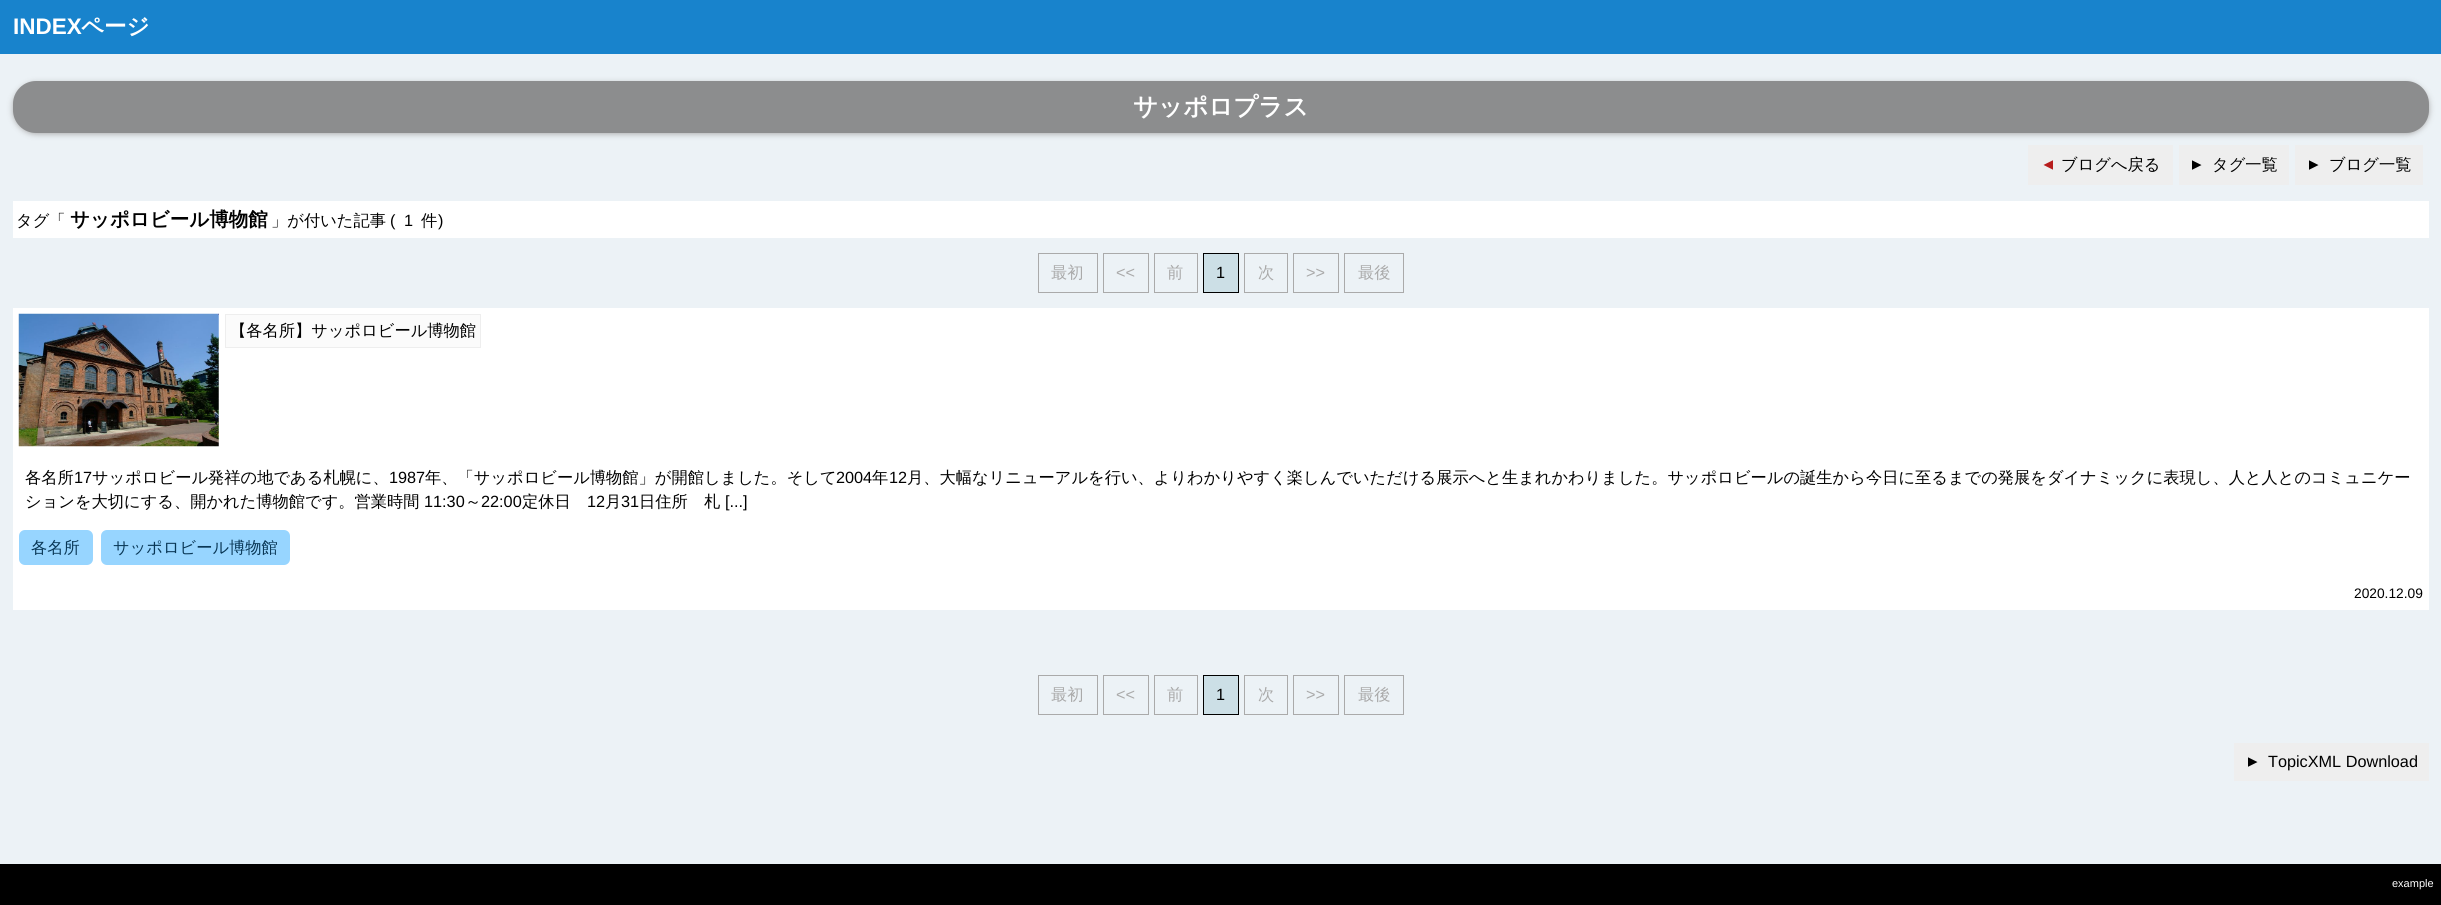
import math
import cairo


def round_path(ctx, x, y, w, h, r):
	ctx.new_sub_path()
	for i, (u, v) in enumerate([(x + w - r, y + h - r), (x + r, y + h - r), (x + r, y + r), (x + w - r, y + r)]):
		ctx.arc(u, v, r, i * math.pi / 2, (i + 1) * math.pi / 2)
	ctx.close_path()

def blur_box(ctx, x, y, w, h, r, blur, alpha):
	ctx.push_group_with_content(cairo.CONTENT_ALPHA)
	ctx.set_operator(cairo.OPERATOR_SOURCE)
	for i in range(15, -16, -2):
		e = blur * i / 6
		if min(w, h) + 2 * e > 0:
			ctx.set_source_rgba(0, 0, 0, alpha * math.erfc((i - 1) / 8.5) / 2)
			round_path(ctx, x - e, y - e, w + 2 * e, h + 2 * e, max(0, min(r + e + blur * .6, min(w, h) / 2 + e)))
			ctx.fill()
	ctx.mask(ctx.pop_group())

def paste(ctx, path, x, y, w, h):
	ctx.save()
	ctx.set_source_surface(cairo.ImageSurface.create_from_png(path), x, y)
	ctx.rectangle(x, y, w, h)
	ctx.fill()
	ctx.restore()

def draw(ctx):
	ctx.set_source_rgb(0.922, 0.949, 0.961)
	ctx.paint()
	ctx.set_source_rgb(0.094, 0.514, 0.8)
	ctx.rectangle(0, 0, 2441, 54)
	ctx.fill()
	ctx.select_font_face('Liberation Sans', cairo.FONT_SLANT_NORMAL, cairo.FONT_WEIGHT_BOLD)
	ctx.set_font_size(22.5)
	ctx.set_source_rgb(1, 1, 1)
	ctx.move_to(13, 34)
	ctx.show_text('INDEX')
	ctx.select_font_face('WenQuanYi Zen Hei', cairo.FONT_SLANT_NORMAL, cairo.FONT_WEIGHT_BOLD)
	ctx.move_to(81, 34)
	ctx.show_text('ページ')
	ctx.set_source_rgb(0.667, 0.667, 0.667)
	blur_box(ctx, 13, 83, 2416, 51, 23, 3, 1)
	ctx.set_source_rgb(0.549, 0.553, 0.557)
	round_path(ctx, 13, 81, 2416, 52, 23)
	ctx.fill()
	ctx.set_font_size(24.5)
	ctx.set_source_rgb(1, 1, 1)
	ctx.move_to(1133, 115)
	ctx.show_text('サッポロプラス')
	ctx.set_source_rgb(0.933, 0.933, 0.933)
	ctx.rectangle(2028, 145, 145, 40)
	ctx.fill()
	ctx.select_font_face('Liberation Sans')
	ctx.set_font_size(16.25)
	ctx.set_source_rgb(0.718, 0.114, 0.114)
	ctx.save()
	ctx.translate(2053, 173)
	ctx.rotate(-90 * math.pi / 180)
	ctx.move_to(0, 0)
	ctx.show_text('▲')
	ctx.restore()
	ctx.select_font_face('WenQuanYi Zen Hei Medium')
	ctx.set_source_rgb(0, 0, 0)
	ctx.move_to(2061, 170)
	ctx.show_text('ブログへ戻る')
	ctx.set_source_rgb(0.933, 0.933, 0.933)
	ctx.rectangle(2179, 145, 110, 40)
	ctx.fill()
	ctx.select_font_face('Liberation Sans')
	ctx.set_source_rgb(0, 0, 0)
	ctx.save()
	ctx.translate(2192, 157)
	ctx.rotate(90 * math.pi / 180)
	ctx.move_to(0, 0)
	ctx.show_text('▲')
	ctx.restore()
	ctx.select_font_face('WenQuanYi Zen Hei Medium')
	ctx.move_to(2212, 170)
	ctx.show_text('タグ一覧')
	ctx.set_source_rgb(0.933, 0.933, 0.933)
	ctx.rectangle(2295, 145, 128, 40)
	ctx.fill()
	ctx.select_font_face('Liberation Sans')
	ctx.set_source_rgb(0, 0, 0)
	ctx.save()
	ctx.translate(2309, 157)
	ctx.rotate(90 * math.pi / 180)
	ctx.move_to(0, 0)
	ctx.show_text('▲')
	ctx.restore()
	ctx.select_font_face('WenQuanYi Zen Hei Medium')
	ctx.move_to(2329, 170)
	ctx.show_text('ブログ一覧')
	ctx.set_source_rgb(1, 1, 1)
	ctx.rectangle(13, 201, 2416, 37)
	ctx.fill()
	ctx.set_source_rgb(0, 0, 0)
	ctx.move_to(16, 226)
	ctx.show_text('タグ「')
	ctx.select_font_face('WenQuanYi Zen Hei', cairo.FONT_SLANT_NORMAL, cairo.FONT_WEIGHT_BOLD)
	ctx.set_font_size(19.5)
	ctx.move_to(70, 226)
	ctx.show_text('サッポロビール博物館')
	ctx.select_font_face('WenQuanYi Zen Hei Medium')
	ctx.set_font_size(16.25)
	ctx.move_to(271, 226)
	ctx.show_text('」が付いた記事')
	ctx.select_font_face('Liberation Sans')
	ctx.move_to(390, 226)
	ctx.show_text('(')
	ctx.move_to(404, 226)
	ctx.show_text('1')
	ctx.select_font_face('WenQuanYi Zen Hei Medium')
	ctx.move_to(421, 226)
	ctx.show_text('件')
	ctx.select_font_face('Liberation Sans')
	ctx.move_to(438, 226)
	ctx.show_text(')')
	ctx.rectangle(1038.5, 253.5, 59, 39)
	ctx.set_source_rgb(0.667, 0.667, 0.667)
	ctx.set_line_width(1)
	ctx.stroke()
	ctx.select_font_face('WenQuanYi Zen Hei Medium')
	ctx.move_to(1051, 278)
	ctx.show_text('最初')
	ctx.rectangle(1103.5, 253.5, 45, 39)
	ctx.stroke()
	ctx.select_font_face('Liberation Sans')
	ctx.move_to(1116, 278)
	ctx.show_text('<<')
	ctx.rectangle(1154.5, 253.5, 43, 39)
	ctx.stroke()
	ctx.select_font_face('WenQuanYi Zen Hei Medium')
	ctx.move_to(1167, 278)
	ctx.show_text('前')
	ctx.set_source_rgb(0.8, 0.875, 0.902)
	ctx.rectangle(1203.5, 253.5, 35, 39)
	ctx.fill_preserve()
	ctx.set_source_rgb(0, 0, 0)
	ctx.stroke()
	ctx.select_font_face('Liberation Sans')
	ctx.move_to(1216, 278)
	ctx.show_text('1')
	ctx.rectangle(1244.5, 253.5, 43, 39)
	ctx.set_source_rgb(0.667, 0.667, 0.667)
	ctx.stroke()
	ctx.select_font_face('WenQuanYi Zen Hei Medium')
	ctx.move_to(1258, 278)
	ctx.show_text('次')
	ctx.rectangle(1293.5, 253.5, 45, 39)
	ctx.stroke()
	ctx.select_font_face('Liberation Sans')
	ctx.move_to(1306, 278)
	ctx.show_text('>>')
	ctx.rectangle(1344.5, 253.5, 59, 39)
	ctx.stroke()
	ctx.select_font_face('WenQuanYi Zen Hei Medium')
	ctx.move_to(1358, 278)
	ctx.show_text('最後')
	ctx.set_source_rgb(1, 1, 1)
	ctx.rectangle(13, 308, 2416, 302)
	ctx.fill()
	paste(ctx, 'media/1.png', 18, 313, 201, 134)
	ctx.set_source_rgb(0.984, 0.984, 0.984)
	ctx.rectangle(225.5, 314.5, 255, 33)
	ctx.fill_preserve()
	ctx.set_source_rgb(0.933, 0.933, 0.933)
	ctx.stroke()
	ctx.set_source_rgb(0, 0, 0)
	ctx.move_to(230, 336)
	ctx.show_text('【各名所】サッポロビール博物館')
	ctx.move_to(25, 483)
	ctx.show_text('各名所')
	ctx.select_font_face('Liberation Sans')
	ctx.move_to(74, 483)
	ctx.show_text('17')
	ctx.select_font_face('WenQuanYi Zen Hei Medium')
	ctx.move_to(92, 483)
	ctx.show_text('サッポロビール発祥の地である札幌に、')
	ctx.select_font_face('Liberation Sans')
	ctx.move_to(389, 483)
	ctx.show_text('1987')
	ctx.select_font_face('WenQuanYi Zen Hei Medium')
	ctx.move_to(425, 483)
	ctx.show_text('年、「サッポロビール博物館」が開館しました。そして')
	ctx.select_font_face('Liberation Sans')
	ctx.move_to(836, 483)
	ctx.show_text('2004')
	ctx.select_font_face('WenQuanYi Zen Hei Medium')
	ctx.move_to(872, 483)
	ctx.show_text('年')
	ctx.select_font_face('Liberation Sans')
	ctx.move_to(889, 483)
	ctx.show_text('12')
	ctx.select_font_face('WenQuanYi Zen Hei Medium')
	ctx.move_to(907, 483)
	ctx.show_text('月、大幅なリニューアルを行い、よりわかりやすく楽しんでいただける展示へと生まれかわりました。サッポロビールの誕生から今日に至るまでの発展をダイナミックに表現し、人と人とのコミュニケー')
	ctx.move_to(25, 507)
	ctx.show_text('ションを大切にする、開かれた博物館です。営業時間')
	ctx.select_font_face('Liberation Sans')
	ctx.move_to(424, 507)
	ctx.show_text('11:30')
	ctx.select_font_face('WenQuanYi Zen Hei Medium')
	ctx.move_to(465, 507)
	ctx.show_text('～')
	ctx.select_font_face('Liberation Sans')
	ctx.move_to(481, 507)
	ctx.show_text('22:00')
	ctx.select_font_face('WenQuanYi Zen Hei Medium')
	ctx.move_to(522, 507)
	ctx.show_text('定休日')
	ctx.select_font_face('Liberation Sans')
	ctx.move_to(587, 507)
	ctx.show_text('12')
	ctx.select_font_face('WenQuanYi Zen Hei Medium')
	ctx.move_to(605, 507)
	ctx.show_text('月')
	ctx.select_font_face('Liberation Sans')
	ctx.move_to(621, 507)
	ctx.show_text('31')
	ctx.select_font_face('WenQuanYi Zen Hei Medium')
	ctx.move_to(639, 507)
	ctx.show_text('日住所　札')
	ctx.select_font_face('Liberation Sans')
	ctx.move_to(725, 507)
	ctx.show_text('[...]')
	ctx.set_source_rgb(0.592, 0.835, 1)
	round_path(ctx, 19, 530, 74, 35, 6)
	ctx.fill()
	ctx.select_font_face('WenQuanYi Zen Hei Medium')
	ctx.set_source_rgb(0.039, 0.216, 0.337)
	ctx.move_to(31, 553)
	ctx.show_text('各名所')
	ctx.set_source_rgb(0.592, 0.835, 1)
	round_path(ctx, 101, 530, 189, 35, 6)
	ctx.fill()
	ctx.set_source_rgb(0.039, 0.216, 0.337)
	ctx.move_to(113, 553)
	ctx.show_text('サッポロビール博物館')
	ctx.select_font_face('Liberation Sans')
	ctx.set_font_size(13.75)
	ctx.set_source_rgb(0, 0, 0)
	ctx.move_to(2354, 598)
	ctx.show_text('2020.12.09')
	ctx.rectangle(1038.5, 675.5, 59, 39)
	ctx.set_source_rgb(0.667, 0.667, 0.667)
	ctx.stroke()
	ctx.select_font_face('WenQuanYi Zen Hei Medium')
	ctx.set_font_size(16.25)
	ctx.move_to(1051, 700)
	ctx.show_text('最初')
	ctx.rectangle(1103.5, 675.5, 45, 39)
	ctx.stroke()
	ctx.select_font_face('Liberation Sans')
	ctx.move_to(1116, 700)
	ctx.show_text('<<')
	ctx.rectangle(1154.5, 675.5, 43, 39)
	ctx.stroke()
	ctx.select_font_face('WenQuanYi Zen Hei Medium')
	ctx.move_to(1167, 700)
	ctx.show_text('前')
	ctx.set_source_rgb(0.8, 0.875, 0.902)
	ctx.rectangle(1203.5, 675.5, 35, 39)
	ctx.fill_preserve()
	ctx.set_source_rgb(0, 0, 0)
	ctx.stroke()
	ctx.select_font_face('Liberation Sans')
	ctx.move_to(1216, 700)
	ctx.show_text('1')
	ctx.rectangle(1244.5, 675.5, 43, 39)
	ctx.set_source_rgb(0.667, 0.667, 0.667)
	ctx.stroke()
	ctx.select_font_face('WenQuanYi Zen Hei Medium')
	ctx.move_to(1258, 700)
	ctx.show_text('次')
	ctx.rectangle(1293.5, 675.5, 45, 39)
	ctx.stroke()
	ctx.select_font_face('Liberation Sans')
	ctx.move_to(1306, 700)
	ctx.show_text('>>')
	ctx.rectangle(1344.5, 675.5, 59, 39)
	ctx.stroke()
	ctx.select_font_face('WenQuanYi Zen Hei Medium')
	ctx.move_to(1358, 700)
	ctx.show_text('最後')
	ctx.set_source_rgb(0.933, 0.933, 0.933)
	ctx.rectangle(2234, 743, 195, 38)
	ctx.fill()
	ctx.select_font_face('Liberation Sans')
	ctx.set_source_rgb(0, 0, 0)
	ctx.save()
	ctx.translate(2248, 754)
	ctx.rotate(90 * math.pi / 180)
	ctx.move_to(0, 0)
	ctx.show_text('▲')
	ctx.restore()
	ctx.move_to(2268, 767)
	ctx.show_text('TopicXML Download')
	ctx.rectangle(0, 864, 2441, 41)
	ctx.fill()
	ctx.set_font_size(11)
	ctx.set_source_rgb(1, 1, 1)
	ctx.move_to(2392, 887)
	ctx.show_text('example')


surface = cairo.ImageSurface(cairo.FORMAT_RGB24, 2441, 905)
ctx = cairo.Context(surface)
options = cairo.FontOptions()
options.set_hint_metrics(cairo.HINT_METRICS_OFF)
options.set_hint_style(cairo.HINT_STYLE_NONE)
ctx.set_font_options(options)
ctx.set_miter_limit(4)
draw(ctx)
surface.write_to_png('image.png')
